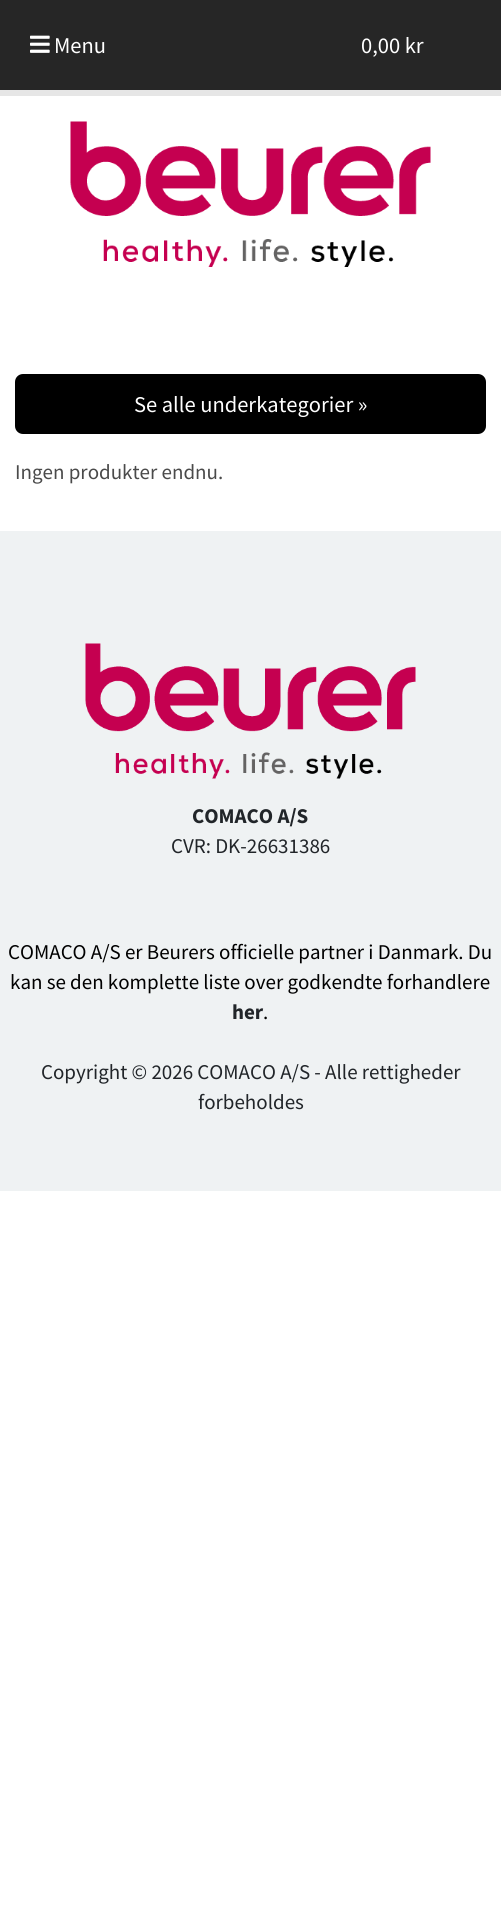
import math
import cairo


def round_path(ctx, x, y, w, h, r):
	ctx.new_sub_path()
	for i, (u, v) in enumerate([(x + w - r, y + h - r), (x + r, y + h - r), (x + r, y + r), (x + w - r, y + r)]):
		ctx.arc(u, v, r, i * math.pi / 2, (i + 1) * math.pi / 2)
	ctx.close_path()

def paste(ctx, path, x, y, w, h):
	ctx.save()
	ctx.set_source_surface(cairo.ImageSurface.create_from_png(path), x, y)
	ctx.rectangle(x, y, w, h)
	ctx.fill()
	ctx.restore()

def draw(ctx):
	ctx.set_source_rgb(1, 1, 1)
	ctx.paint()
	ctx.set_source_rgb(0.902, 0.902, 0.902)
	ctx.rectangle(0, 90, 501, 6)
	ctx.fill()
	ctx.set_source_rgb(0.149, 0.149, 0.149)
	ctx.rectangle(0, 0, 501, 90)
	ctx.fill()
	paste(ctx, 'media/1.png', 30, 35, 20, 18)
	ctx.select_font_face('Source Sans Pro')
	ctx.set_font_size(22.5)
	ctx.set_source_rgb(1, 1, 1)
	ctx.move_to(54, 53)
	ctx.show_text('Menu')
	ctx.move_to(361, 53)
	ctx.show_text('0,00 kr')
	paste(ctx, 'media/2.png', 70, 121, 361, 146)
	ctx.set_source_rgb(0, 0, 0)
	round_path(ctx, 15, 374, 471, 60, 8)
	ctx.fill()
	ctx.set_source_rgb(1, 1, 1)
	ctx.move_to(134, 412)
	ctx.show_text('Se alle underkategorier »')
	ctx.set_font_size(21)
	ctx.set_source_rgb(0.29, 0.29, 0.29)
	ctx.move_to(15, 479)
	ctx.show_text('Ingen produkter endnu.')
	ctx.set_source_rgb(0.937, 0.949, 0.953)
	ctx.rectangle(0, 531, 501, 660)
	ctx.fill()
	paste(ctx, 'media/3.png', 85, 643, 331, 136)
	ctx.select_font_face('Source Sans Pro', cairo.FONT_SLANT_NORMAL, cairo.FONT_WEIGHT_BOLD)
	ctx.set_source_rgb(0.129, 0.145, 0.161)
	ctx.move_to(192, 823)
	ctx.show_text('COMACO A/S')
	ctx.select_font_face('Source Sans Pro')
	ctx.move_to(171, 853)
	ctx.show_text('CVR: DK-26631386')
	ctx.set_source_rgb(0, 0, 0)
	ctx.move_to(8, 959)
	ctx.show_text('COMACO A/S er Beurers officielle partner i Danmark. Du')
	ctx.move_to(10, 989)
	ctx.show_text('kan se den komplette liste over godkendte forhandlere')
	ctx.select_font_face('Source Sans Pro', cairo.FONT_SLANT_NORMAL, cairo.FONT_WEIGHT_BOLD)
	ctx.set_source_rgb(0.129, 0.145, 0.161)
	ctx.move_to(232, 1019)
	ctx.show_text('her')
	ctx.select_font_face('Source Sans Pro')
	ctx.set_source_rgb(0, 0, 0)
	ctx.move_to(263, 1019)
	ctx.show_text('.')
	ctx.set_source_rgb(0.129, 0.145, 0.161)
	ctx.move_to(41, 1079)
	ctx.show_text('Copyright © 2026 COMACO A/S - Alle rettigheder')
	ctx.move_to(198, 1109)
	ctx.show_text('forbeholdes')


surface = cairo.ImageSurface(cairo.FORMAT_RGB24, 501, 1923)
ctx = cairo.Context(surface)
options = cairo.FontOptions()
options.set_hint_metrics(cairo.HINT_METRICS_OFF)
options.set_hint_style(cairo.HINT_STYLE_NONE)
ctx.set_font_options(options)
ctx.set_miter_limit(4)
draw(ctx)
surface.write_to_png('image.png')
